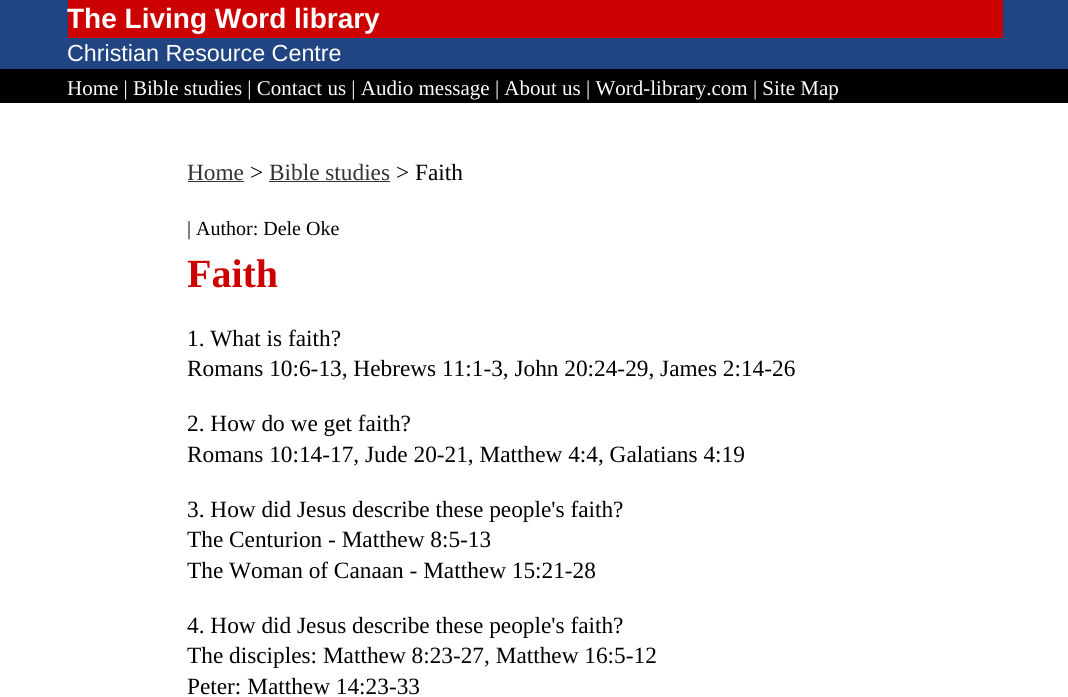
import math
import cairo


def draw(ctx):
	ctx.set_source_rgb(1, 1, 1)
	ctx.paint()
	ctx.set_source_rgb(0.129, 0.271, 0.514)
	ctx.rectangle(0, 0, 1068, 69)
	ctx.fill()
	ctx.set_source_rgb(0.8, 0, 0)
	ctx.rectangle(68, 0, 935, 38)
	ctx.fill()
	ctx.select_font_face('Liberation Sans', cairo.FONT_SLANT_NORMAL, cairo.FONT_WEIGHT_BOLD)
	ctx.set_font_size(28)
	ctx.set_source_rgb(1, 1, 1)
	ctx.move_to(67, 28)
	ctx.show_text('The Living Word library')
	ctx.select_font_face('Liberation Sans')
	ctx.set_font_size(23.3)
	ctx.move_to(67, 61)
	ctx.show_text('Christian Resource Centre')
	ctx.set_source_rgb(0, 0, 0)
	ctx.rectangle(0, 69, 1068, 34)
	ctx.fill()
	ctx.select_font_face('Liberation Serif')
	ctx.set_font_size(21)
	ctx.set_source_rgb(1, 1, 1)
	ctx.move_to(67, 95)
	ctx.show_text('Home | Bible studies | Contact us | Audio message | About us | Word-library.com | Site Map')
	ctx.set_font_size(23.3)
	ctx.set_source_rgb(0.2, 0.2, 0.2)
	ctx.move_to(187, 180)
	ctx.show_text('Home')
	ctx.rectangle(188, 181, 56, 1)
	ctx.fill()
	ctx.set_source_rgb(0, 0, 0)
	ctx.move_to(250, 180)
	ctx.show_text('>')
	ctx.set_source_rgb(0.2, 0.2, 0.2)
	ctx.move_to(269, 180)
	ctx.show_text('Bible studies')
	ctx.rectangle(269, 181, 121, 1)
	ctx.fill()
	ctx.set_source_rgb(0, 0, 0)
	ctx.move_to(396, 180)
	ctx.show_text('> Faith')
	ctx.set_font_size(20)
	ctx.move_to(187, 235)
	ctx.show_text('| Author: Dele Oke')
	ctx.select_font_face('Liberation Serif', cairo.FONT_SLANT_NORMAL, cairo.FONT_WEIGHT_BOLD)
	ctx.set_font_size(40)
	ctx.set_source_rgb(0.8, 0, 0)
	ctx.move_to(187, 287)
	ctx.show_text('Faith')
	ctx.select_font_face('Liberation Serif')
	ctx.set_font_size(23.3)
	ctx.set_source_rgb(0, 0, 0)
	for x, y, s in [
		(187, 346, '1. What is faith?'),
		(187, 376, 'Romans 10:6-13, Hebrews 11:1-3, John 20:24-29, James 2:14-26'),
		(187, 431, '2. How do we get faith?'),
		(187, 462, 'Romans 10:14-17, Jude 20-21, Matthew 4:4, Galatians 4:19'),
		(187, 517, '3. How did Jesus describe these people\'s faith?'),
		(187, 547, 'The Centurion - Matthew 8:5-13'),
		(187, 578, 'The Woman of Canaan - Matthew 15:21-28'),
		(187, 633, '4. How did Jesus describe these people\'s faith?'),
		(187, 663, 'The disciples: Matthew 8:23-27, Matthew 16:5-12'),
		(187, 694, 'Peter: Matthew 14:23-33'),
	]:
		ctx.move_to(x, y)
		ctx.show_text(s)


surface = cairo.ImageSurface(cairo.FORMAT_RGB24, 1068, 697)
ctx = cairo.Context(surface)
options = cairo.FontOptions()
options.set_hint_metrics(cairo.HINT_METRICS_OFF)
options.set_hint_style(cairo.HINT_STYLE_NONE)
ctx.set_font_options(options)
ctx.set_miter_limit(4)
draw(ctx)
surface.write_to_png('image.png')
